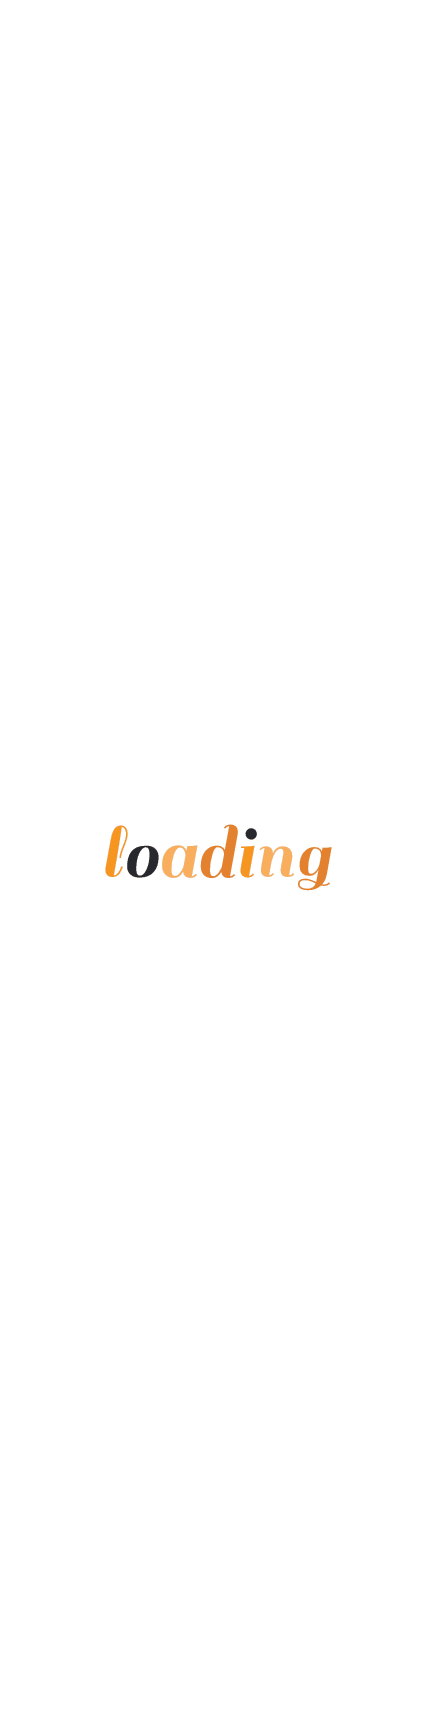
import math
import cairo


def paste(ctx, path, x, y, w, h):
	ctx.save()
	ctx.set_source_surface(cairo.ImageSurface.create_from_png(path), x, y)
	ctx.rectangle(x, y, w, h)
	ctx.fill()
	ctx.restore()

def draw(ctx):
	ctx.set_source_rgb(1, 1, 1)
	ctx.paint()
	paste(ctx, 'media/1.png', 105, 824, 227, 67)


surface = cairo.ImageSurface(cairo.FORMAT_RGB24, 427, 1715)
ctx = cairo.Context(surface)
options = cairo.FontOptions()
options.set_hint_metrics(cairo.HINT_METRICS_OFF)
options.set_hint_style(cairo.HINT_STYLE_NONE)
ctx.set_font_options(options)
ctx.set_miter_limit(4)
draw(ctx)
surface.write_to_png('image.png')
